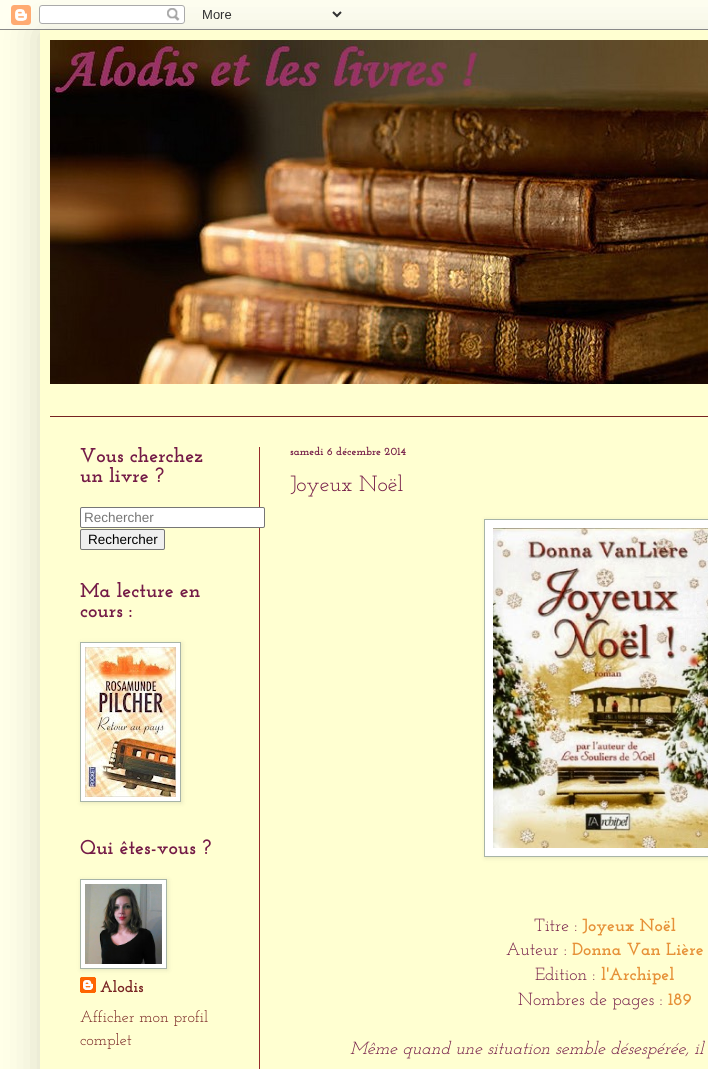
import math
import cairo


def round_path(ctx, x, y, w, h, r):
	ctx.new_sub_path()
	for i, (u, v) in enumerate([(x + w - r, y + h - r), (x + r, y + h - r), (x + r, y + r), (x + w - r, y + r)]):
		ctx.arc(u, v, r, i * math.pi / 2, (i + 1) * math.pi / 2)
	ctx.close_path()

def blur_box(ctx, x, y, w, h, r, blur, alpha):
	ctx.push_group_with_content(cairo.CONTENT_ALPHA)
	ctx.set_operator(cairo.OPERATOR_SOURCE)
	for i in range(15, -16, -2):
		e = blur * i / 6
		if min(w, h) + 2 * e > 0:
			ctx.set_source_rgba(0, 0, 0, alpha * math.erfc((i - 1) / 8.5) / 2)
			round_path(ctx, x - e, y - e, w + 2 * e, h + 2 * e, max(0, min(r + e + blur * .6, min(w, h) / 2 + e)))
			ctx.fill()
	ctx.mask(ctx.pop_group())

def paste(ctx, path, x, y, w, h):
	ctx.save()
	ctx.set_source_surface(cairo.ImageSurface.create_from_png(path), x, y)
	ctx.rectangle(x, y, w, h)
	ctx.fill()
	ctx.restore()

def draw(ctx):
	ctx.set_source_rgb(1, 1, 0.91)
	ctx.paint()
	ctx.set_source_rgb(0, 0, 0)
	blur_box(ctx, 40, 30, 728, 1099, 0, 20, 0.15)
	paste(ctx, 'media/1.png', 0, 0, 708, 30)
	ctx.set_source_rgb(1, 1, 0.82)
	ctx.rectangle(40, 30, 668, 1039)
	ctx.fill()
	paste(ctx, 'media/2.png', 50, 40, 658, 344)
	ctx.set_source_rgb(0.467, 0.133, 0.133)
	ctx.rectangle(50, 416, 658, 1)
	ctx.fill()
	ctx.select_font_face('Josefin Slab', cairo.FONT_SLANT_NORMAL, cairo.FONT_WEIGHT_BOLD)
	ctx.set_font_size(20)
	ctx.set_source_rgb(0.455, 0.106, 0.278)
	ctx.move_to(80, 462)
	ctx.show_text('Vous cherchez')
	ctx.move_to(80, 482)
	ctx.show_text('un livre ?')
	ctx.set_source_rgb(0.588, 0.169, 0.169)
	ctx.rectangle(259, 447, 1, 622)
	ctx.fill()
	ctx.set_source_rgb(1, 1, 1)
	round_path(ctx, 80.5, 507.5, 184, 20, 1.5)
	ctx.fill_preserve()
	ctx.set_source_rgb(0.463, 0.463, 0.463)
	ctx.set_line_width(1)
	ctx.stroke()
	ctx.select_font_face('Liberation Sans')
	ctx.set_font_size(13.5)
	ctx.set_source_rgb(0.459, 0.459, 0.459)
	ctx.move_to(84, 522)
	ctx.show_text('Rechercher')
	ctx.set_source_rgb(0.937, 0.937, 0.937)
	round_path(ctx, 80.5, 529.5, 84, 20, 1.5)
	ctx.fill_preserve()
	ctx.set_source_rgb(0.463, 0.463, 0.463)
	ctx.stroke()
	ctx.set_source_rgb(0, 0, 0)
	ctx.move_to(88, 544)
	ctx.show_text('Rechercher')
	ctx.select_font_face('Josefin Slab', cairo.FONT_SLANT_NORMAL, cairo.FONT_WEIGHT_BOLD)
	ctx.set_font_size(20)
	ctx.set_source_rgb(0.455, 0.106, 0.278)
	ctx.move_to(80, 597)
	ctx.show_text('Ma lecture en')
	ctx.move_to(80, 617)
	ctx.show_text('cours :')
	ctx.set_source_rgb(0, 0, 0)
	blur_box(ctx, 81, 643, 101, 160, 0, 2.5, 0.1)
	ctx.set_source_rgb(1, 1, 1)
	ctx.rectangle(80.5, 642.5, 100, 159)
	ctx.fill_preserve()
	ctx.set_source_rgb(0.655, 0.706, 0.655)
	ctx.stroke()
	paste(ctx, 'media/3.png', 85, 647, 91, 150)
	ctx.set_source_rgb(0.455, 0.106, 0.278)
	ctx.move_to(80, 854)
	ctx.show_text('Qui êtes-vous ?')
	paste(ctx, 'media/5.png', 80, 977, 16, 16)
	ctx.set_source_rgb(0, 0, 0)
	blur_box(ctx, 81, 880, 87, 90, 0, 2.5, 0.1)
	ctx.set_source_rgb(1, 1, 1)
	ctx.rectangle(80.5, 879.5, 86, 89)
	ctx.fill_preserve()
	ctx.set_source_rgb(0.655, 0.706, 0.655)
	ctx.stroke()
	paste(ctx, 'media/4.png', 85, 884, 77, 80)
	ctx.set_font_size(16)
	ctx.set_source_rgb(0.467, 0.133, 0.133)
	ctx.move_to(100, 992)
	ctx.show_text('Alodis')
	ctx.select_font_face('Josefin Slab')
	ctx.move_to(80, 1022)
	ctx.show_text('Afficher mon profil')
	ctx.move_to(80, 1045)
	ctx.show_text('complet')
	ctx.select_font_face('Josefin Slab', cairo.FONT_SLANT_NORMAL, cairo.FONT_WEIGHT_BOLD)
	ctx.set_font_size(11)
	ctx.set_source_rgb(0.455, 0.106, 0.278)
	ctx.move_to(290, 455)
	ctx.show_text('samedi 6 décembre 2014')
	ctx.select_font_face('Josefin Slab')
	ctx.set_font_size(22)
	ctx.move_to(290, 491)
	ctx.show_text('Joyeux Noël')
	ctx.set_source_rgb(0, 0, 0)
	blur_box(ctx, 485, 520, 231, 338, 0, 2.5, 0.1)
	ctx.set_source_rgb(1, 1, 1)
	ctx.rectangle(484.5, 519.5, 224, 337)
	ctx.fill_preserve()
	ctx.set_source_rgb(0.655, 0.706, 0.655)
	ctx.stroke()
	paste(ctx, 'media/6.png', 493, 528, 215, 320)
	ctx.set_font_size(17.6)
	ctx.set_source_rgb(0.455, 0.106, 0.278)
	ctx.move_to(534, 931)
	ctx.show_text('Titre :')
	ctx.select_font_face('Josefin Slab', cairo.FONT_SLANT_NORMAL, cairo.FONT_WEIGHT_BOLD)
	ctx.set_source_rgb(0.902, 0.569, 0.22)
	ctx.move_to(582, 931)
	ctx.show_text('Joyeux Noël')
	ctx.select_font_face('Josefin Slab')
	ctx.set_source_rgb(0.455, 0.106, 0.278)
	ctx.move_to(506, 955)
	ctx.show_text('Auteur :')
	ctx.select_font_face('Josefin Slab', cairo.FONT_SLANT_NORMAL, cairo.FONT_WEIGHT_BOLD)
	ctx.set_source_rgb(0.902, 0.569, 0.22)
	ctx.move_to(572, 955)
	ctx.show_text('Donna Van Lière')
	ctx.select_font_face('Josefin Slab')
	ctx.set_source_rgb(0.455, 0.106, 0.278)
	ctx.move_to(535, 980)
	ctx.show_text('Edition :')
	ctx.select_font_face('Josefin Slab', cairo.FONT_SLANT_NORMAL, cairo.FONT_WEIGHT_BOLD)
	ctx.set_source_rgb(0.902, 0.569, 0.22)
	ctx.move_to(601, 980)
	ctx.show_text('l\'Archipel')
	ctx.select_font_face('Josefin Slab')
	ctx.set_source_rgb(0.455, 0.106, 0.278)
	ctx.move_to(518, 1005)
	ctx.show_text('Nombres de pages :')
	ctx.select_font_face('Josefin Slab', cairo.FONT_SLANT_NORMAL, cairo.FONT_WEIGHT_BOLD)
	ctx.set_source_rgb(0.902, 0.569, 0.22)
	ctx.move_to(668, 1005)
	ctx.show_text('189')
	ctx.select_font_face('Josefin Slab', cairo.FONT_SLANT_ITALIC)
	ctx.set_source_rgb(0.455, 0.106, 0.278)
	ctx.move_to(350, 1054)
	ctx.show_text('Même quand une situation semble désespérée, il')


surface = cairo.ImageSurface(cairo.FORMAT_RGB24, 708, 1069)
ctx = cairo.Context(surface)
options = cairo.FontOptions()
options.set_hint_metrics(cairo.HINT_METRICS_OFF)
options.set_hint_style(cairo.HINT_STYLE_NONE)
ctx.set_font_options(options)
ctx.set_miter_limit(4)
draw(ctx)
surface.write_to_png('image.png')
